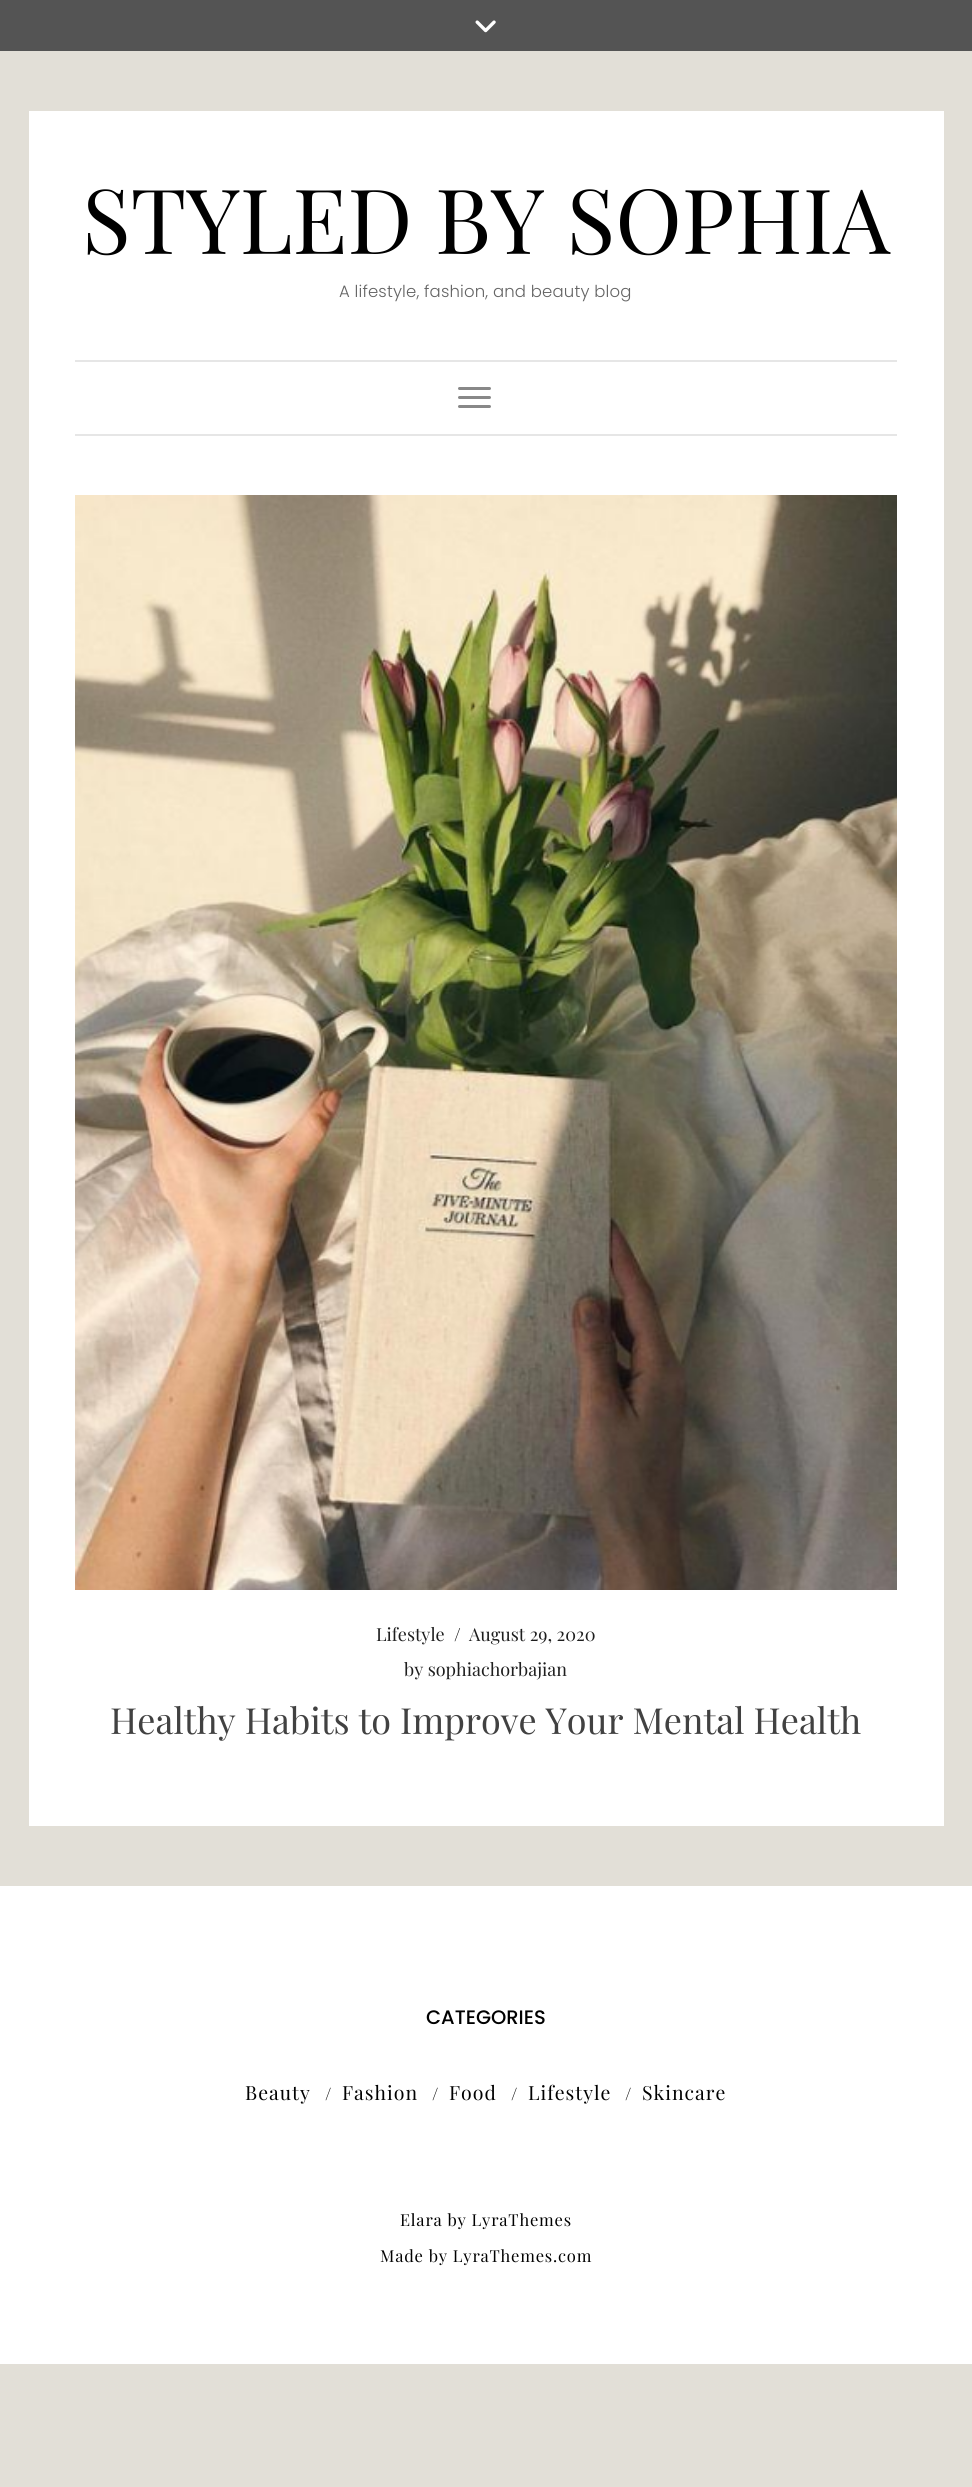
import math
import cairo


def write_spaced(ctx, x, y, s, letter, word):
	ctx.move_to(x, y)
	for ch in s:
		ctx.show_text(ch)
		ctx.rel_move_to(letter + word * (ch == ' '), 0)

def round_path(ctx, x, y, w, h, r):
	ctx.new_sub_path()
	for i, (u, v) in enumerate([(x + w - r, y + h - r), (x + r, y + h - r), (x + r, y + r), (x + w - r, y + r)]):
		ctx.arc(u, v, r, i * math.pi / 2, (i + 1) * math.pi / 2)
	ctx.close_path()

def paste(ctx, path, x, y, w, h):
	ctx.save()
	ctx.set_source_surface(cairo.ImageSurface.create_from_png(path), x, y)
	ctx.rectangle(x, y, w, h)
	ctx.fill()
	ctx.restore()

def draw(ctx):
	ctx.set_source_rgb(0.886, 0.875, 0.843)
	ctx.paint()
	ctx.set_source_rgb(0.329, 0.329, 0.329)
	ctx.rectangle(0, 0, 972, 51)
	ctx.fill()
	paste(ctx, 'media/1.png', 475, 20, 21, 13)
	ctx.set_source_rgb(1, 1, 1)
	ctx.rectangle(29, 111, 915, 1715)
	ctx.fill()
	ctx.select_font_face('Playfair Display')
	ctx.set_font_size(90)
	ctx.set_source_rgb(0, 0, 0)
	ctx.move_to(82, 254)
	ctx.show_text('STYLED BY SOPHIA')
	ctx.select_font_face('Poppins Light')
	ctx.set_font_size(16.5)
	ctx.set_source_rgb(0.392, 0.392, 0.392)
	write_spaced(ctx, 339, 297, 'A lifestyle, fashion, and beauty blog', 0.15, 0)
	ctx.set_source_rgb(0.902, 0.902, 0.902)
	ctx.rectangle(75, 360, 822, 2)
	ctx.fill()
	ctx.rectangle(75, 434, 822, 2)
	ctx.fill()
	ctx.set_source_rgb(0.533, 0.533, 0.533)
	round_path(ctx, 458, 387, 33, 3, 1.5)
	ctx.fill()
	round_path(ctx, 458, 396, 33, 3, 1.5)
	ctx.fill()
	round_path(ctx, 458, 405, 33, 3, 1.5)
	ctx.fill()
	paste(ctx, 'media/2.png', 75, 495, 822, 1095)
	ctx.select_font_face('Playfair Display')
	ctx.set_font_size(18)
	ctx.set_source_rgb(0.118, 0.118, 0.118)
	ctx.move_to(376, 1641)
	ctx.show_text('Lifestyle')
	ctx.set_source_rgb(0, 0, 0)
	ctx.move_to(454, 1641)
	ctx.show_text('/')
	ctx.set_source_rgb(0.118, 0.118, 0.118)
	ctx.move_to(469, 1641)
	ctx.show_text('August 29, 2020')
	ctx.move_to(404, 1676)
	ctx.show_text('by sophiachorbajian')
	ctx.set_font_size(36)
	ctx.set_source_rgb(0.255, 0.255, 0.255)
	ctx.move_to(110, 1734)
	ctx.show_text('Healthy Habits to Improve Your Mental Health')
	ctx.set_source_rgb(1, 1, 1)
	ctx.rectangle(0, 1886, 972, 478)
	ctx.fill()
	ctx.select_font_face('Poppins Medium')
	ctx.set_font_size(19.5)
	ctx.set_source_rgb(0, 0, 0)
	ctx.move_to(426, 2024)
	ctx.show_text('CATEGORIES')
	ctx.select_font_face('Playfair Display')
	write_spaced(ctx, 245, 2100, 'Beauty', 1, 0)
	ctx.set_font_size(17)
	ctx.move_to(325, 2100)
	ctx.show_text('/')
	ctx.set_font_size(19.5)
	write_spaced(ctx, 342, 2100, 'Fashion', 1, 0)
	ctx.set_font_size(17)
	ctx.move_to(432, 2100)
	ctx.show_text('/')
	ctx.set_font_size(19.5)
	write_spaced(ctx, 449, 2100, 'Food', 1, 0)
	ctx.set_font_size(17)
	ctx.move_to(511, 2100)
	ctx.show_text('/')
	ctx.set_font_size(19.5)
	write_spaced(ctx, 528, 2100, 'Lifestyle', 1, 0)
	ctx.set_font_size(17)
	ctx.move_to(625, 2100)
	ctx.show_text('/')
	ctx.set_font_size(19.5)
	write_spaced(ctx, 642, 2100, 'Skincare', 1, 0)
	ctx.set_font_size(16.5)
	write_spaced(ctx, 400, 2226, 'Elara by LyraThemes', 0.8, 0)
	write_spaced(ctx, 380, 2262, 'Made by LyraThemes.com', 0.8, 0)


surface = cairo.ImageSurface(cairo.FORMAT_RGB24, 972, 2487)
ctx = cairo.Context(surface)
options = cairo.FontOptions()
options.set_hint_metrics(cairo.HINT_METRICS_OFF)
options.set_hint_style(cairo.HINT_STYLE_NONE)
ctx.set_font_options(options)
ctx.set_miter_limit(4)
draw(ctx)
surface.write_to_png('image.png')
